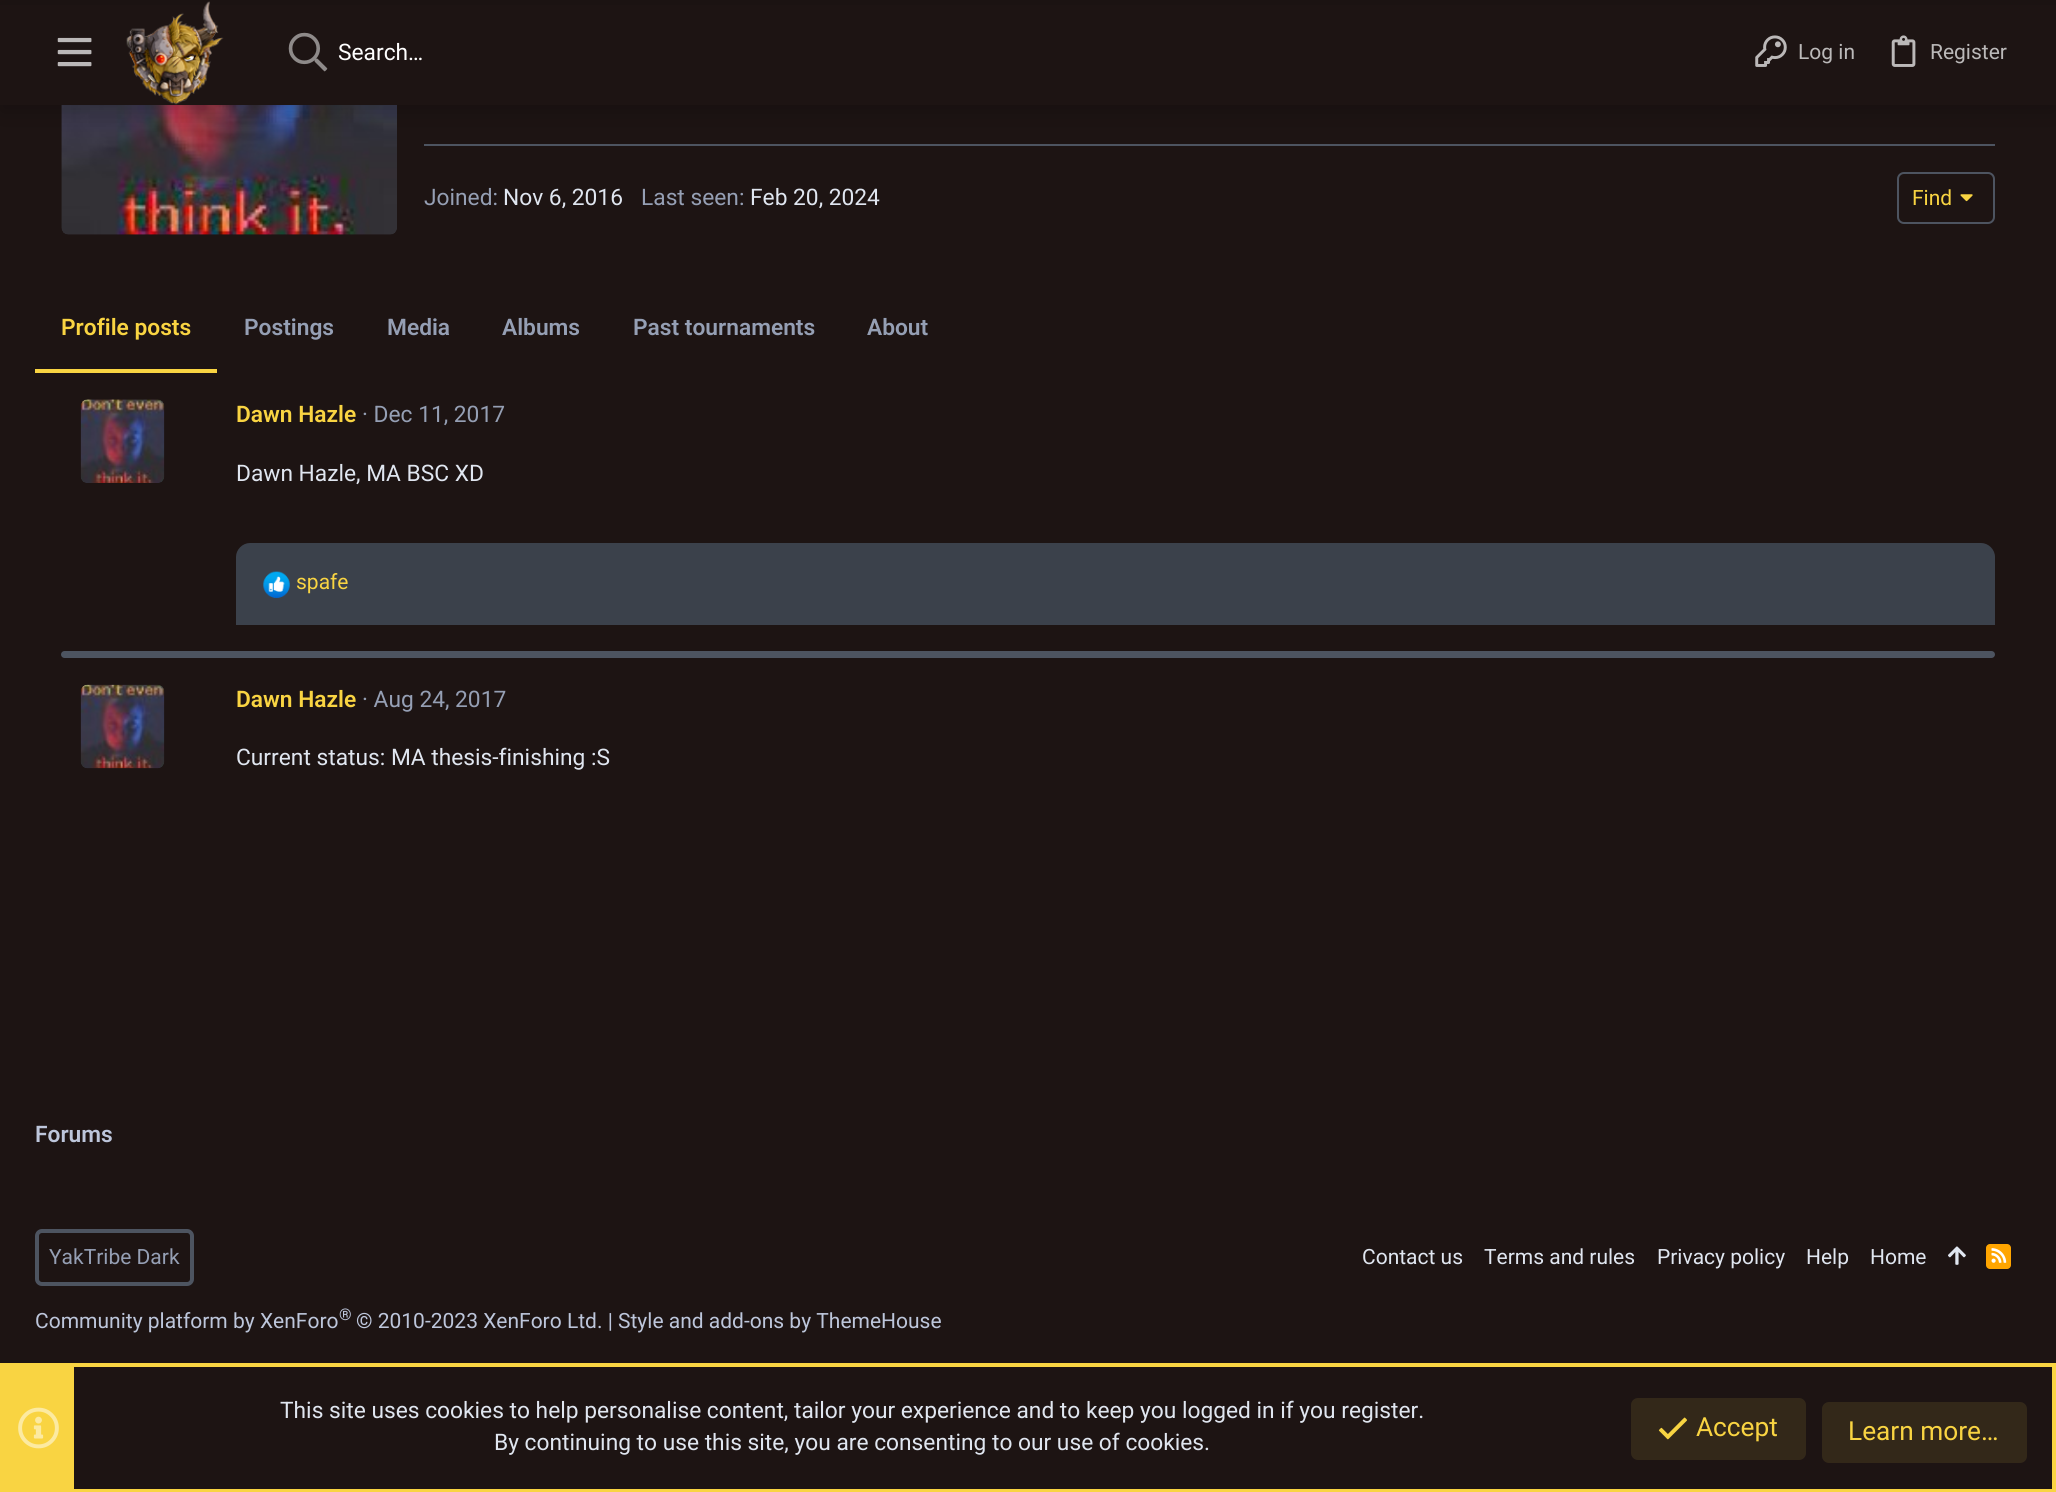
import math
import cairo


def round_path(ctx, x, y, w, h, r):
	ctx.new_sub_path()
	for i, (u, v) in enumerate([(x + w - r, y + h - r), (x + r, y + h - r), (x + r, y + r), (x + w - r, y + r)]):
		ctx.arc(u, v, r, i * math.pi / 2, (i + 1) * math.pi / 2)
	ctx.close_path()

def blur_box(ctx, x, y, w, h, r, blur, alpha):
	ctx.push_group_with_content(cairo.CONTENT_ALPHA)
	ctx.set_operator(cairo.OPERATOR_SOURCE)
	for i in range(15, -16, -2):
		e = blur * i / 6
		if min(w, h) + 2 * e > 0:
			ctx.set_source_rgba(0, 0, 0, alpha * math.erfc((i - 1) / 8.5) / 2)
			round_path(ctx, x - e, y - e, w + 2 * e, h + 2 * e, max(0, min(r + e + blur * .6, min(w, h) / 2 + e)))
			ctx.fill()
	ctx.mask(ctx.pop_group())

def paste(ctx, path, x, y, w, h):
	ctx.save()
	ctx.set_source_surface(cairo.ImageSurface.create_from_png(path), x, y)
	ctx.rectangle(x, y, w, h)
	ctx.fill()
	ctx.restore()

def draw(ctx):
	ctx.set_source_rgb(0.114, 0.082, 0.078)
	ctx.paint()
	paste(ctx, 'media/6.png', 61, 105, 336, 130)
	ctx.set_source_rgb(0.302, 0.329, 0.376)
	ctx.rectangle(424, 144, 1571, 2)
	ctx.fill()
	ctx.set_source_rgb(0, 0, 0)
	blur_box(ctx, 0, 7, 2056, 105, 0, 13, 0.2)
	ctx.set_source_rgb(0.114, 0.082, 0.078)
	ctx.rectangle(0, 5, 2056, 100)
	ctx.fill()
	paste(ctx, 'media/1.png', 57, 37, 35, 30)
	paste(ctx, 'media/2.png', 126, 1, 98, 104)
	paste(ctx, 'media/3.png', 288, 32, 40, 40)
	ctx.select_font_face('Roboto')
	ctx.set_font_size(22.75)
	ctx.set_source_rgb(1, 1, 1)
	ctx.move_to(338, 60)
	ctx.show_text('Search…')
	paste(ctx, 'media/4.png', 1755, 35, 32, 32)
	ctx.set_font_size(21)
	ctx.set_source_rgb(0.733, 0.725, 0.725)
	ctx.move_to(1798, 59)
	ctx.show_text('Log in')
	paste(ctx, 'media/5.png', 1891, 35, 25, 32)
	ctx.move_to(1930, 59)
	ctx.show_text('Register')
	ctx.set_font_size(22.75)
	ctx.set_source_rgb(0.584, 0.624, 0.706)
	ctx.move_to(424, 205)
	ctx.show_text('Joined:')
	ctx.set_source_rgb(0.878, 0.902, 0.941)
	ctx.move_to(503, 205)
	ctx.show_text('Nov 6, 2016')
	ctx.set_source_rgb(0.584, 0.624, 0.706)
	ctx.move_to(641, 205)
	ctx.show_text('Last seen:')
	ctx.set_source_rgb(0.878, 0.902, 0.941)
	ctx.move_to(750, 205)
	ctx.show_text('Feb 20, 2024')
	round_path(ctx, 1898, 173, 96, 50, 6)
	ctx.set_source_rgb(0.302, 0.329, 0.376)
	ctx.stroke()
	ctx.set_font_size(21)
	ctx.set_source_rgb(0.973, 0.831, 0.259)
	ctx.move_to(1912, 205)
	ctx.show_text('Find')
	paste(ctx, 'media/7.png', 1960, 194, 13, 8)
	ctx.rectangle(35, 369, 182, 4)
	ctx.fill()
	ctx.select_font_face('Roboto SemiBold')
	ctx.set_font_size(22.75)
	ctx.move_to(61, 335)
	ctx.show_text('Profile posts')
	ctx.set_source_rgb(0.584, 0.624, 0.706)
	for x, y, s in [
		(244, 335, 'Postings'),
		(387, 335, 'Media'),
		(502, 335, 'Albums'),
		(633, 335, 'Past tournaments'),
		(867, 335, 'About'),
	]:
		ctx.move_to(x, y)
		ctx.show_text(s)
	paste(ctx, 'media/8.png', 80, 399, 85, 84)
	ctx.set_source_rgb(0.973, 0.831, 0.259)
	ctx.move_to(236, 422)
	ctx.show_text('Dawn Hazle')
	ctx.select_font_face('Roboto')
	ctx.set_source_rgb(0.584, 0.624, 0.706)
	ctx.move_to(362, 422)
	ctx.show_text('· Dec 11, 2017')
	ctx.set_source_rgb(0.878, 0.902, 0.941)
	ctx.move_to(236, 481)
	ctx.show_text('Dawn Hazle, MA BSC XD')
	ctx.set_source_rgb(0.231, 0.255, 0.294)
	ctx.new_path()
	ctx.move_to(250, 543)
	ctx.line_to(1981, 543)
	ctx.curve_to(1988.5, 543, 1995, 549.5, 1995, 557)
	ctx.line_to(1995, 625)
	ctx.line_to(236, 625)
	ctx.line_to(236, 557)
	ctx.curve_to(236, 549.5, 242.5, 543, 250, 543)
	ctx.close_path()
	ctx.fill()
	paste(ctx, 'media/9.png', 263, 571, 27, 27)
	ctx.set_font_size(21)
	ctx.set_source_rgb(0.973, 0.831, 0.259)
	ctx.move_to(296, 589)
	ctx.show_text('spafe')
	ctx.set_source_rgb(0.302, 0.329, 0.376)
	round_path(ctx, 61, 651, 1934, 7, 3.5)
	ctx.fill()
	paste(ctx, 'media/10.png', 80, 684, 85, 85)
	ctx.select_font_face('Roboto SemiBold')
	ctx.set_font_size(22.75)
	ctx.set_source_rgb(0.973, 0.831, 0.259)
	ctx.move_to(236, 707)
	ctx.show_text('Dawn Hazle')
	ctx.select_font_face('Roboto')
	ctx.set_source_rgb(0.584, 0.624, 0.706)
	ctx.move_to(362, 707)
	ctx.show_text('· Aug 24, 2017')
	ctx.set_source_rgb(0.878, 0.902, 0.941)
	ctx.move_to(236, 765)
	ctx.show_text('Current status: MA thesis-finishing :S')
	ctx.select_font_face('Roboto SemiBold')
	ctx.set_source_rgb(0.741, 0.776, 0.859)
	ctx.move_to(35, 1142)
	ctx.show_text('Forums')
	round_path(ctx, 37, 1231, 155, 53, 5)
	ctx.set_source_rgb(0.302, 0.329, 0.376)
	ctx.set_line_width(4)
	ctx.stroke()
	ctx.select_font_face('Roboto')
	ctx.set_font_size(21)
	ctx.set_source_rgb(0.584, 0.624, 0.706)
	ctx.move_to(49, 1264)
	ctx.show_text('YakTribe Dark')
	ctx.set_source_rgb(0.878, 0.902, 0.941)
	for x, y, s in [
		(1362, 1264, 'Contact us'),
		(1484, 1264, 'Terms and rules'),
		(1657, 1264, 'Privacy policy'),
		(1806, 1264, 'Help'),
		(1870, 1264, 'Home'),
	]:
		ctx.move_to(x, y)
		ctx.show_text(s)
	paste(ctx, 'media/11.png', 1948, 1246, 18, 19)
	ctx.set_source_rgb(1, 0.647, 0)
	round_path(ctx, 1986, 1244, 25, 25, 4)
	ctx.fill()
	paste(ctx, 'media/12.png', 1991, 1248, 16, 15)
	ctx.set_source_rgb(0.741, 0.776, 0.859)
	ctx.move_to(35, 1328)
	ctx.show_text('Community platform by XenForo')
	ctx.set_font_size(16)
	ctx.move_to(339, 1320)
	ctx.show_text('®')
	ctx.set_font_size(21)
	ctx.move_to(356, 1328)
	ctx.show_text('© 2010-2023 XenForo Ltd. | Style and add-ons by ThemeHouse')
	ctx.rectangle(2, 1365, 2052, 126)
	ctx.set_source_rgb(0.973, 0.831, 0.259)
	ctx.stroke()
	ctx.rectangle(4, 1367, 70, 122)
	ctx.fill()
	paste(ctx, 'media/13.png', 18, 1407, 41, 42)
	ctx.set_font_size(22.75)
	ctx.set_source_rgb(0.878, 0.902, 0.941)
	ctx.move_to(280, 1418)
	ctx.show_text('This site uses cookies to help personalise content, tailor your experience and to keep you logged in if you register.')
	ctx.move_to(494, 1450)
	ctx.show_text('By continuing to use this site, you are consenting to our use of cookies.')
	ctx.set_source_rgb(0.2, 0.157, 0.098)
	round_path(ctx, 1631, 1398, 175, 62, 7)
	ctx.fill()
	paste(ctx, 'media/14.png', 1658, 1417, 29, 23)
	ctx.set_font_size(26.25)
	ctx.set_source_rgb(0.973, 0.831, 0.259)
	ctx.move_to(1696, 1436)
	ctx.show_text('Accept')
	ctx.set_source_rgb(0.2, 0.157, 0.098)
	round_path(ctx, 1822, 1402, 205, 61, 7)
	ctx.fill()
	ctx.set_source_rgb(0.973, 0.831, 0.259)
	ctx.move_to(1848, 1440)
	ctx.show_text('Learn more…')


surface = cairo.ImageSurface(cairo.FORMAT_RGB24, 2056, 1492)
ctx = cairo.Context(surface)
options = cairo.FontOptions()
options.set_hint_metrics(cairo.HINT_METRICS_OFF)
options.set_hint_style(cairo.HINT_STYLE_NONE)
ctx.set_font_options(options)
ctx.set_miter_limit(4)
draw(ctx)
surface.write_to_png('image.png')
